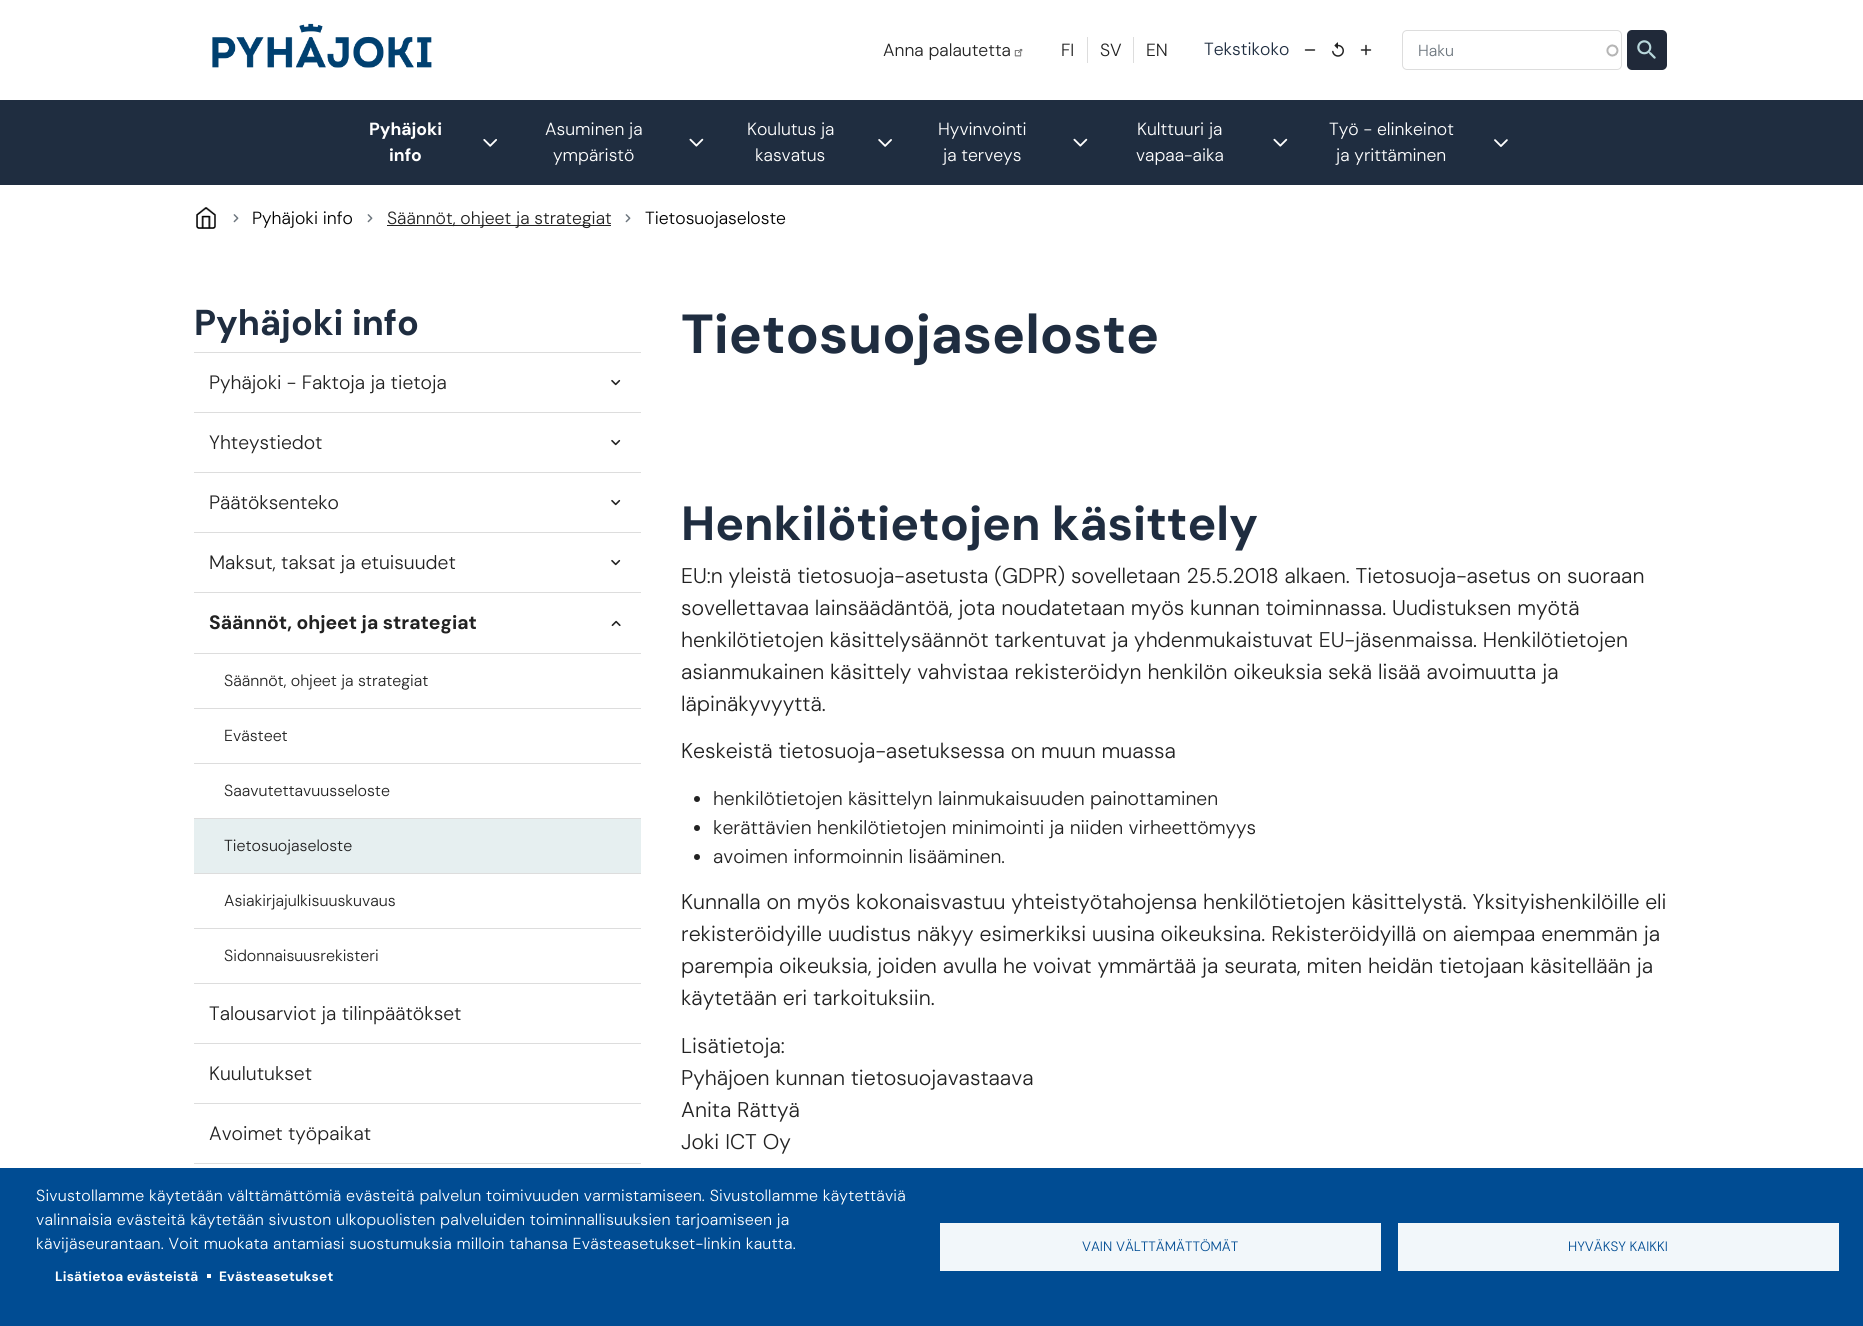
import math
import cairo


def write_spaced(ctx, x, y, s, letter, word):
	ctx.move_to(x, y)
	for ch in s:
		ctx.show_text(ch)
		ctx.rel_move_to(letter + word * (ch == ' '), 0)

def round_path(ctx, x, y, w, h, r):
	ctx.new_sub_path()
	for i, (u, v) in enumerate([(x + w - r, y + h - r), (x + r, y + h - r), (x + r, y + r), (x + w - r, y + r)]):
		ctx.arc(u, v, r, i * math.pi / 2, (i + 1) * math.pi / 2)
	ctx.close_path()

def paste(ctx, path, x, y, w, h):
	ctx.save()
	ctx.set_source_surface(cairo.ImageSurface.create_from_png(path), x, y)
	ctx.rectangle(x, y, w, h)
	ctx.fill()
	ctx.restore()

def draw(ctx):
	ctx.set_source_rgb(1, 1, 1)
	ctx.paint()
	paste(ctx, 'media/1.png', 212, 23, 220, 45)
	ctx.select_font_face('DM Sans Light')
	ctx.set_font_size(17.6)
	ctx.set_source_rgb(0.133, 0.133, 0.133)
	ctx.move_to(883, 56)
	ctx.show_text('Anna palautetta')
	paste(ctx, 'media/2.png', 1014, 48, 9, 9)
	ctx.set_source_rgb(0.867, 0.867, 0.867)
	ctx.rectangle(1087, 37, 1, 26)
	ctx.fill()
	ctx.set_source_rgb(0.133, 0.133, 0.133)
	ctx.move_to(1061, 56)
	ctx.show_text('FI')
	ctx.set_source_rgb(0.867, 0.867, 0.867)
	ctx.rectangle(1133, 37, 1, 26)
	ctx.fill()
	ctx.set_source_rgb(0.133, 0.133, 0.133)
	ctx.move_to(1100, 56)
	ctx.show_text('SV')
	ctx.move_to(1146, 56)
	ctx.show_text('EN')
	ctx.set_source_rgb(0.122, 0.176, 0.251)
	ctx.move_to(1204, 55)
	ctx.show_text('Tekstikoko')
	paste(ctx, 'media/3.png', 1304, 49, 12, 2)
	paste(ctx, 'media/4.png', 1332, 42, 12, 15)
	paste(ctx, 'media/5.png', 1360, 44, 12, 12)
	paste(ctx, 'media/6.png', 1606, 44, 13, 13)
	round_path(ctx, 1402.5, 30.5, 219, 39, 4.5)
	ctx.set_source_rgb(0.867, 0.867, 0.867)
	ctx.set_line_width(1)
	ctx.stroke()
	ctx.set_font_size(16)
	ctx.set_source_rgb(0.424, 0.459, 0.49)
	ctx.move_to(1418, 56)
	ctx.show_text('Haku')
	ctx.set_source_rgb(0.125, 0.161, 0.224)
	round_path(ctx, 1627, 30, 40, 40, 5)
	ctx.fill()
	paste(ctx, 'media/7.png', 1637, 40, 19, 19)
	ctx.set_source_rgb(0.122, 0.176, 0.251)
	ctx.rectangle(0, 100, 1863, 85)
	ctx.fill()
	ctx.select_font_face('DM Sans', cairo.FONT_SLANT_NORMAL, cairo.FONT_WEIGHT_BOLD)
	ctx.set_font_size(17.6)
	ctx.set_source_rgb(1, 1, 1)
	ctx.move_to(369, 135)
	ctx.show_text('Pyhäjoki')
	ctx.move_to(389, 161)
	ctx.show_text('info')
	paste(ctx, 'media/8.png', 483, 139, 14, 8)
	ctx.select_font_face('DM Sans Light')
	ctx.move_to(545, 135)
	ctx.show_text('Asuminen ja')
	ctx.move_to(553, 161)
	ctx.show_text('ympäristö')
	paste(ctx, 'media/9.png', 689, 138, 15, 9)
	ctx.move_to(747, 135)
	ctx.show_text('Koulutus ja')
	ctx.move_to(755, 161)
	ctx.show_text('kasvatus')
	paste(ctx, 'media/10.png', 878, 139, 14, 8)
	ctx.move_to(938, 135)
	ctx.show_text('Hyvinvointi')
	ctx.move_to(943, 161)
	ctx.show_text('ja terveys')
	paste(ctx, 'media/11.png', 1073, 138, 15, 9)
	ctx.move_to(1137, 135)
	ctx.show_text('Kulttuuri ja')
	ctx.move_to(1136, 161)
	ctx.show_text('vapaa-aika')
	paste(ctx, 'media/12.png', 1273, 138, 15, 9)
	ctx.move_to(1329, 135)
	ctx.show_text('Työ - elinkeinot')
	ctx.move_to(1336, 161)
	ctx.show_text('ja yrittäminen')
	paste(ctx, 'media/13.png', 1494, 139, 14, 8)
	paste(ctx, 'media/14.png', 196, 207, 20, 22)
	paste(ctx, 'media/15.png', 233, 214, 6, 9)
	ctx.set_source_rgb(0, 0, 0)
	ctx.move_to(252, 224)
	ctx.show_text('Pyhäjoki info')
	paste(ctx, 'media/15.png', 367, 214, 6, 9)
	ctx.set_source_rgb(0.133, 0.133, 0.133)
	ctx.rectangle(387, 225, 224, 1)
	ctx.fill()
	ctx.move_to(387, 224)
	ctx.show_text('Säännöt, ohjeet ja strategiat')
	paste(ctx, 'media/15.png', 625, 214, 6, 9)
	ctx.set_source_rgb(0, 0, 0)
	ctx.move_to(645, 224)
	ctx.show_text('Tietosuojaseloste')
	ctx.select_font_face('DM Sans', cairo.FONT_SLANT_NORMAL, cairo.FONT_WEIGHT_BOLD)
	ctx.set_font_size(36)
	ctx.set_source_rgb(0.122, 0.176, 0.251)
	ctx.move_to(194, 335)
	ctx.show_text('Pyhäjoki info')
	ctx.set_source_rgb(0.867, 0.867, 0.867)
	ctx.rectangle(194, 352, 447, 1)
	ctx.fill()
	ctx.select_font_face('DM Sans Light')
	ctx.set_font_size(19.35)
	ctx.set_source_rgb(0.133, 0.133, 0.133)
	ctx.move_to(209, 389)
	ctx.show_text('Pyhäjoki - Faktoja ja tietoja')
	paste(ctx, 'media/16.png', 611, 379, 10, 7)
	ctx.set_source_rgb(0.867, 0.867, 0.867)
	ctx.rectangle(194, 412, 447, 1)
	ctx.fill()
	ctx.set_source_rgb(0.133, 0.133, 0.133)
	ctx.move_to(209, 449)
	ctx.show_text('Yhteystiedot')
	paste(ctx, 'media/16.png', 611, 439, 10, 7)
	ctx.set_source_rgb(0.867, 0.867, 0.867)
	ctx.rectangle(194, 472, 447, 1)
	ctx.fill()
	ctx.set_source_rgb(0.133, 0.133, 0.133)
	ctx.move_to(209, 509)
	ctx.show_text('Päätöksenteko')
	paste(ctx, 'media/16.png', 611, 499, 10, 7)
	ctx.set_source_rgb(0.867, 0.867, 0.867)
	ctx.rectangle(194, 532, 447, 1)
	ctx.fill()
	ctx.set_source_rgb(0.133, 0.133, 0.133)
	ctx.move_to(209, 569)
	ctx.show_text('Maksut, taksat ja etuisuudet')
	paste(ctx, 'media/16.png', 611, 559, 10, 7)
	ctx.set_source_rgb(0.867, 0.867, 0.867)
	ctx.rectangle(194, 592, 447, 1)
	ctx.fill()
	ctx.select_font_face('DM Sans', cairo.FONT_SLANT_NORMAL, cairo.FONT_WEIGHT_BOLD)
	ctx.set_source_rgb(0.133, 0.133, 0.133)
	ctx.move_to(209, 629)
	ctx.show_text('Säännöt, ohjeet ja strategiat')
	paste(ctx, 'media/17.png', 611, 620, 10, 7)
	ctx.set_source_rgb(0.867, 0.867, 0.867)
	ctx.rectangle(194, 653, 447, 1)
	ctx.fill()
	ctx.select_font_face('DM Sans Light')
	ctx.set_font_size(16)
	ctx.set_source_rgb(0.133, 0.133, 0.133)
	ctx.move_to(224, 686)
	ctx.show_text('Säännöt, ohjeet ja strategiat')
	ctx.set_source_rgb(0.867, 0.867, 0.867)
	ctx.rectangle(194, 708, 447, 1)
	ctx.fill()
	ctx.set_source_rgb(0.133, 0.133, 0.133)
	ctx.move_to(224, 741)
	ctx.show_text('Evästeet')
	ctx.set_source_rgb(0.867, 0.867, 0.867)
	ctx.rectangle(194, 763, 447, 1)
	ctx.fill()
	ctx.set_source_rgb(0.133, 0.133, 0.133)
	ctx.move_to(224, 796)
	ctx.show_text('Saavutettavuusseloste')
	ctx.set_source_rgb(0.902, 0.937, 0.941)
	ctx.rectangle(194, 819, 447, 54)
	ctx.fill()
	ctx.set_source_rgb(0.867, 0.867, 0.867)
	ctx.rectangle(194, 818, 447, 1)
	ctx.fill()
	ctx.set_source_rgb(0.133, 0.133, 0.133)
	ctx.move_to(224, 851)
	ctx.show_text('Tietosuojaseloste')
	ctx.set_source_rgb(0.867, 0.867, 0.867)
	ctx.rectangle(194, 873, 447, 1)
	ctx.fill()
	ctx.set_source_rgb(0.133, 0.133, 0.133)
	ctx.move_to(224, 906)
	ctx.show_text('Asiakirjajulkisuuskuvaus')
	ctx.set_source_rgb(0.867, 0.867, 0.867)
	ctx.rectangle(194, 928, 447, 1)
	ctx.fill()
	ctx.set_source_rgb(0.133, 0.133, 0.133)
	ctx.move_to(224, 961)
	ctx.show_text('Sidonnaisuusrekisteri')
	ctx.set_source_rgb(0.867, 0.867, 0.867)
	ctx.rectangle(194, 983, 447, 1)
	ctx.fill()
	ctx.set_font_size(19.35)
	ctx.set_source_rgb(0.133, 0.133, 0.133)
	ctx.move_to(209, 1020)
	ctx.show_text('Talousarviot ja tilinpäätökset')
	ctx.set_source_rgb(0.867, 0.867, 0.867)
	ctx.rectangle(194, 1043, 447, 1)
	ctx.fill()
	ctx.set_source_rgb(0.133, 0.133, 0.133)
	ctx.move_to(209, 1080)
	ctx.show_text('Kuulutukset')
	ctx.set_source_rgb(0.867, 0.867, 0.867)
	ctx.rectangle(194, 1103, 447, 1)
	ctx.fill()
	ctx.set_source_rgb(0.133, 0.133, 0.133)
	ctx.move_to(209, 1140)
	ctx.show_text('Avoimet työpaikat')
	ctx.set_source_rgb(0.867, 0.867, 0.867)
	ctx.rectangle(194, 1163, 447, 1)
	ctx.fill()
	ctx.select_font_face('DM Sans', cairo.FONT_SLANT_NORMAL, cairo.FONT_WEIGHT_BOLD)
	ctx.set_font_size(55)
	ctx.set_source_rgb(0.122, 0.176, 0.251)
	ctx.move_to(681, 353)
	ctx.show_text('Tietosuojaseloste')
	ctx.set_font_size(48)
	ctx.move_to(681, 540)
	ctx.show_text('Henkilötietojen käsittely')
	ctx.select_font_face('DM Sans Light')
	ctx.set_font_size(21.3)
	ctx.set_source_rgb(0.133, 0.133, 0.133)
	for x, y, s in [
		(681, 583, 'EU:n yleistä tietosuoja-asetusta (GDPR) sovelletaan 25.5.2018 alkaen. Tietosuoja-asetus on suoraan'),
		(681, 615, 'sovellettavaa lainsäädäntöä, jota noudatetaan myös kunnan toiminnassa. Uudistuksen myötä'),
		(681, 647, 'henkilötietojen käsittelysäännöt tarkentuvat ja yhdenmukaistuvat EU-jäsenmaissa. Henkilötietojen'),
		(681, 679, 'asianmukainen käsittely vahvistaa rekisteröidyn henkilön oikeuksia sekä lisää avoimuutta ja'),
		(681, 711, 'läpinäkyvyyttä.'),
		(681, 758, 'Keskeistä tietosuoja-asetuksessa on muun muassa'),
	]:
		ctx.move_to(x, y)
		ctx.show_text(s)
	ctx.new_path()
	ctx.arc(697, 799, 3, 0, 2 * math.pi)
	ctx.fill()
	ctx.set_font_size(19.35)
	ctx.move_to(713, 805)
	ctx.show_text('henkilötietojen käsittelyn lainmukaisuuden painottaminen')
	ctx.new_path()
	ctx.arc(697, 828, 3, 0, 2 * math.pi)
	ctx.fill()
	ctx.move_to(713, 834)
	ctx.show_text('kerättävien henkilötietojen minimointi ja niiden virheettömyys')
	ctx.new_path()
	ctx.arc(697, 857, 3, 0, 2 * math.pi)
	ctx.fill()
	ctx.move_to(713, 863)
	ctx.show_text('avoimen informoinnin lisääminen.')
	ctx.set_font_size(21.3)
	for x, y, s in [
		(681, 909, 'Kunnalla on myös kokonaisvastuu yhteistyötahojensa henkilötietojen käsittelystä. Yksityishenkilöille eli'),
		(681, 941, 'rekisteröidyille uudistus näkyy esimerkiksi uusina oikeuksina. Rekisteröidyillä on aiempaa enemmän ja'),
		(681, 973, 'parempia oikeuksia, joiden avulla he voivat ymmärtää ja seurata, miten heidän tietojaan käsitellään ja'),
		(681, 1005, 'käytetään eri tarkoituksiin.'),
		(681, 1053, 'Lisätietoja:'),
		(681, 1085, 'Pyhäjoen kunnan tietosuojavastaava'),
		(681, 1117, 'Anita Rättyä'),
		(681, 1149, 'Joki ICT Oy'),
	]:
		ctx.move_to(x, y)
		ctx.show_text(s)
	ctx.set_source_rgb(0, 0.298, 0.576)
	ctx.rectangle(0, 1168, 1863, 158)
	ctx.fill()
	ctx.set_font_size(16)
	ctx.set_source_rgb(1, 1, 1)
	for x, y, s in [
		(36, 1201, 'Sivustollamme käytetään välttämättömiä evästeitä palvelun toimivuuden varmistamiseen. Sivustollamme käytettäviä'),
		(36, 1225, 'valinnaisia evästeitä käytetään sivuston ulkopuolisten palveluiden toiminnallisuuksien tarjoamiseen ja'),
		(36, 1249, 'kävijäseurantaan. Voit muokata antamiasi suostumuksia milloin tahansa Evästeasetukset-linkin kautta.'),
	]:
		write_spaced(ctx, x, y, s, 0.2, 0)
	ctx.select_font_face('DM Sans', cairo.FONT_SLANT_NORMAL, cairo.FONT_WEIGHT_BOLD)
	ctx.set_font_size(13.6)
	write_spaced(ctx, 55, 1281, 'Lisätietoa evästeistä', 0.2, 0)
	ctx.rectangle(207, 1274, 4, 4)
	ctx.fill()
	write_spaced(ctx, 219, 1281, 'Evästeasetukset', 0.2, 0)
	ctx.set_source_rgb(0.949, 0.965, 0.98)
	ctx.rectangle(940, 1223, 441, 48)
	ctx.fill()
	ctx.select_font_face('DM Sans Light')
	ctx.set_source_rgb(0, 0.298, 0.576)
	ctx.move_to(1082, 1251)
	ctx.show_text('VAIN VÄLTTÄMÄTTÖMÄT')
	ctx.set_source_rgb(0.949, 0.965, 0.98)
	ctx.rectangle(1398, 1223, 441, 48)
	ctx.fill()
	ctx.set_source_rgb(0, 0.298, 0.576)
	ctx.move_to(1568, 1251)
	ctx.show_text('HYVÄKSY KAIKKI')


surface = cairo.ImageSurface(cairo.FORMAT_RGB24, 1863, 1326)
ctx = cairo.Context(surface)
options = cairo.FontOptions()
options.set_hint_metrics(cairo.HINT_METRICS_OFF)
options.set_hint_style(cairo.HINT_STYLE_NONE)
ctx.set_font_options(options)
ctx.set_miter_limit(4)
draw(ctx)
surface.write_to_png('image.png')
